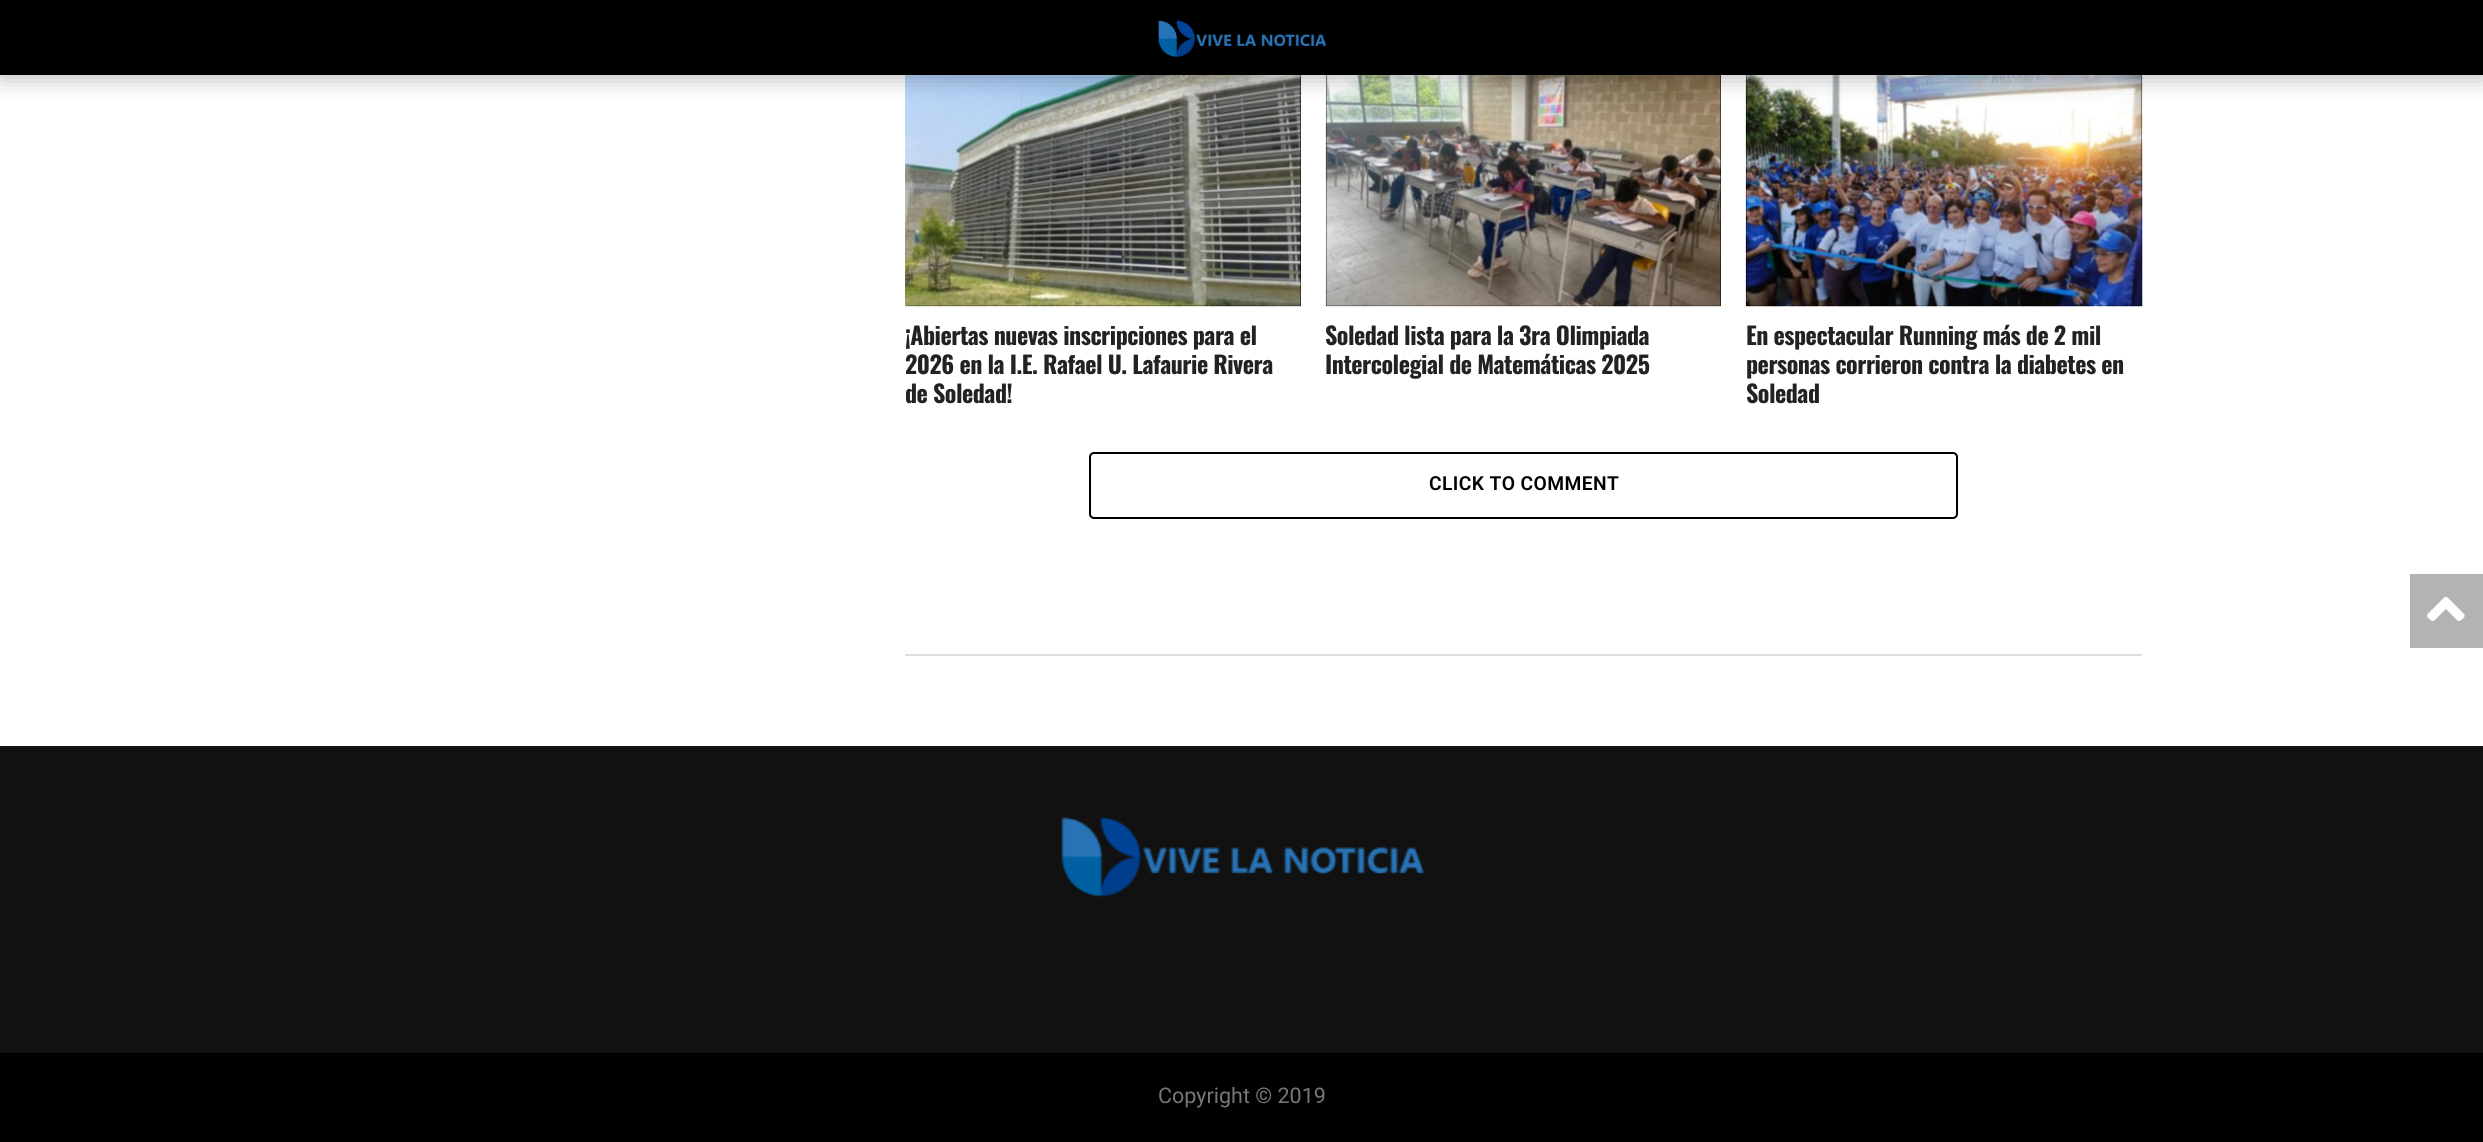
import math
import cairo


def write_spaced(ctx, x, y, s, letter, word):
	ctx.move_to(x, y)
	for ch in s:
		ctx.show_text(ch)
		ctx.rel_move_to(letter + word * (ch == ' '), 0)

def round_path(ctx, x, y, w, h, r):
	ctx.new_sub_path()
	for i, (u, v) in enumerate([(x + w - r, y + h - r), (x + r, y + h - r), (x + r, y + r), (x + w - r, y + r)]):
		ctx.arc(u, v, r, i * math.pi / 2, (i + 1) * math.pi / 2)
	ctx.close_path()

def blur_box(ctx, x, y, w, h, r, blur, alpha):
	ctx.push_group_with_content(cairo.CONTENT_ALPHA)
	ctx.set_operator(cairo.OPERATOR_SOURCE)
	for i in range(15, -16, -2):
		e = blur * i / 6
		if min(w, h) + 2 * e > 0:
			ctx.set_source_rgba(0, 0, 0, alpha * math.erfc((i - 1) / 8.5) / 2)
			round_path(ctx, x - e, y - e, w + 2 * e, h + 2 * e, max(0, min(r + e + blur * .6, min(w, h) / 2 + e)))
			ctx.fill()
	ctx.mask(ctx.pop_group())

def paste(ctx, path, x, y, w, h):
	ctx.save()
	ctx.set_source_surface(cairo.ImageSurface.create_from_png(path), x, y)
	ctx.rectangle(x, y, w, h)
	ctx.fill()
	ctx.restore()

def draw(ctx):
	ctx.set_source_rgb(1, 1, 1)
	ctx.paint()
	ctx.set_source_rgb(0, 0, 0)
	ctx.rectangle(905, 75, 396, 231)
	ctx.fill()
	paste(ctx, 'media/2.png', 905, 75, 396, 232)
	ctx.rectangle(1326, 75, 395, 231)
	ctx.fill()
	paste(ctx, 'media/3.png', 1325, 75, 396, 232)
	ctx.rectangle(1746, 75, 396, 231)
	ctx.fill()
	paste(ctx, 'media/4.png', 1745, 75, 398, 232)
	ctx.set_source_rgb(0, 0, 0)
	blur_box(ctx, 0, 2, 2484, 75, 0, 12, 0.3)
	ctx.set_source_rgb(0, 0, 0)
	ctx.rectangle(0, 0, 2483, 75)
	ctx.fill()
	paste(ctx, 'media/1.png', 1158, 20, 169, 38)
	ctx.set_source_rgb(0.867, 0.867, 0.867)
	ctx.rectangle(905, 654, 1237, 2)
	ctx.fill()
	ctx.select_font_face('Oswald', cairo.FONT_SLANT_NORMAL, cairo.FONT_WEIGHT_BOLD)
	ctx.set_font_size(24)
	ctx.set_source_rgb(0.133, 0.133, 0.133)
	for x, y, s in [
		(905, 345, '¡Abiertas nuevas inscripciones para el'),
		(905, 374, '2026 en la I.E. Rafael U. Lafaurie Rivera'),
		(905, 403, 'de Soledad!'),
		(1325, 345, 'Soledad lista para la 3ra Olimpiada'),
		(1325, 374, 'Intercolegial de Matemáticas 2025'),
		(1746, 345, 'En espectacular Running más de 2 mil'),
		(1746, 374, 'personas corrieron contra la diabetes en'),
		(1746, 403, 'Soledad'),
	]:
		write_spaced(ctx, x, y, s, -0.5, 0)
	round_path(ctx, 1090, 453, 867, 65, 4)
	ctx.set_source_rgb(0, 0, 0)
	ctx.stroke()
	ctx.select_font_face('Roboto SemiBold')
	ctx.set_font_size(19.25)
	write_spaced(ctx, 1429, 490, 'CLICK TO COMMENT', 0.4, 0)
	ctx.set_source_rgb(0.067, 0.067, 0.067)
	ctx.rectangle(0, 746, 2483, 307)
	ctx.fill()
	paste(ctx, 'media/5.png', 1061, 817, 364, 81)
	ctx.set_source_rgb(0, 0, 0)
	ctx.rectangle(0, 1053, 2483, 89)
	ctx.fill()
	ctx.select_font_face('Roboto')
	ctx.set_font_size(21.5)
	ctx.set_source_rgb(0.467, 0.467, 0.467)
	ctx.move_to(1158, 1103)
	ctx.show_text('Copyright © 2019')
	ctx.set_source_rgb(0.702, 0.702, 0.702)
	ctx.rectangle(2410, 574, 73, 74)
	ctx.fill()
	paste(ctx, 'media/6.png', 2427, 597, 38, 24)


surface = cairo.ImageSurface(cairo.FORMAT_RGB24, 2483, 1142)
ctx = cairo.Context(surface)
options = cairo.FontOptions()
options.set_hint_metrics(cairo.HINT_METRICS_OFF)
options.set_hint_style(cairo.HINT_STYLE_NONE)
ctx.set_font_options(options)
ctx.set_miter_limit(4)
draw(ctx)
surface.write_to_png('image.png')
